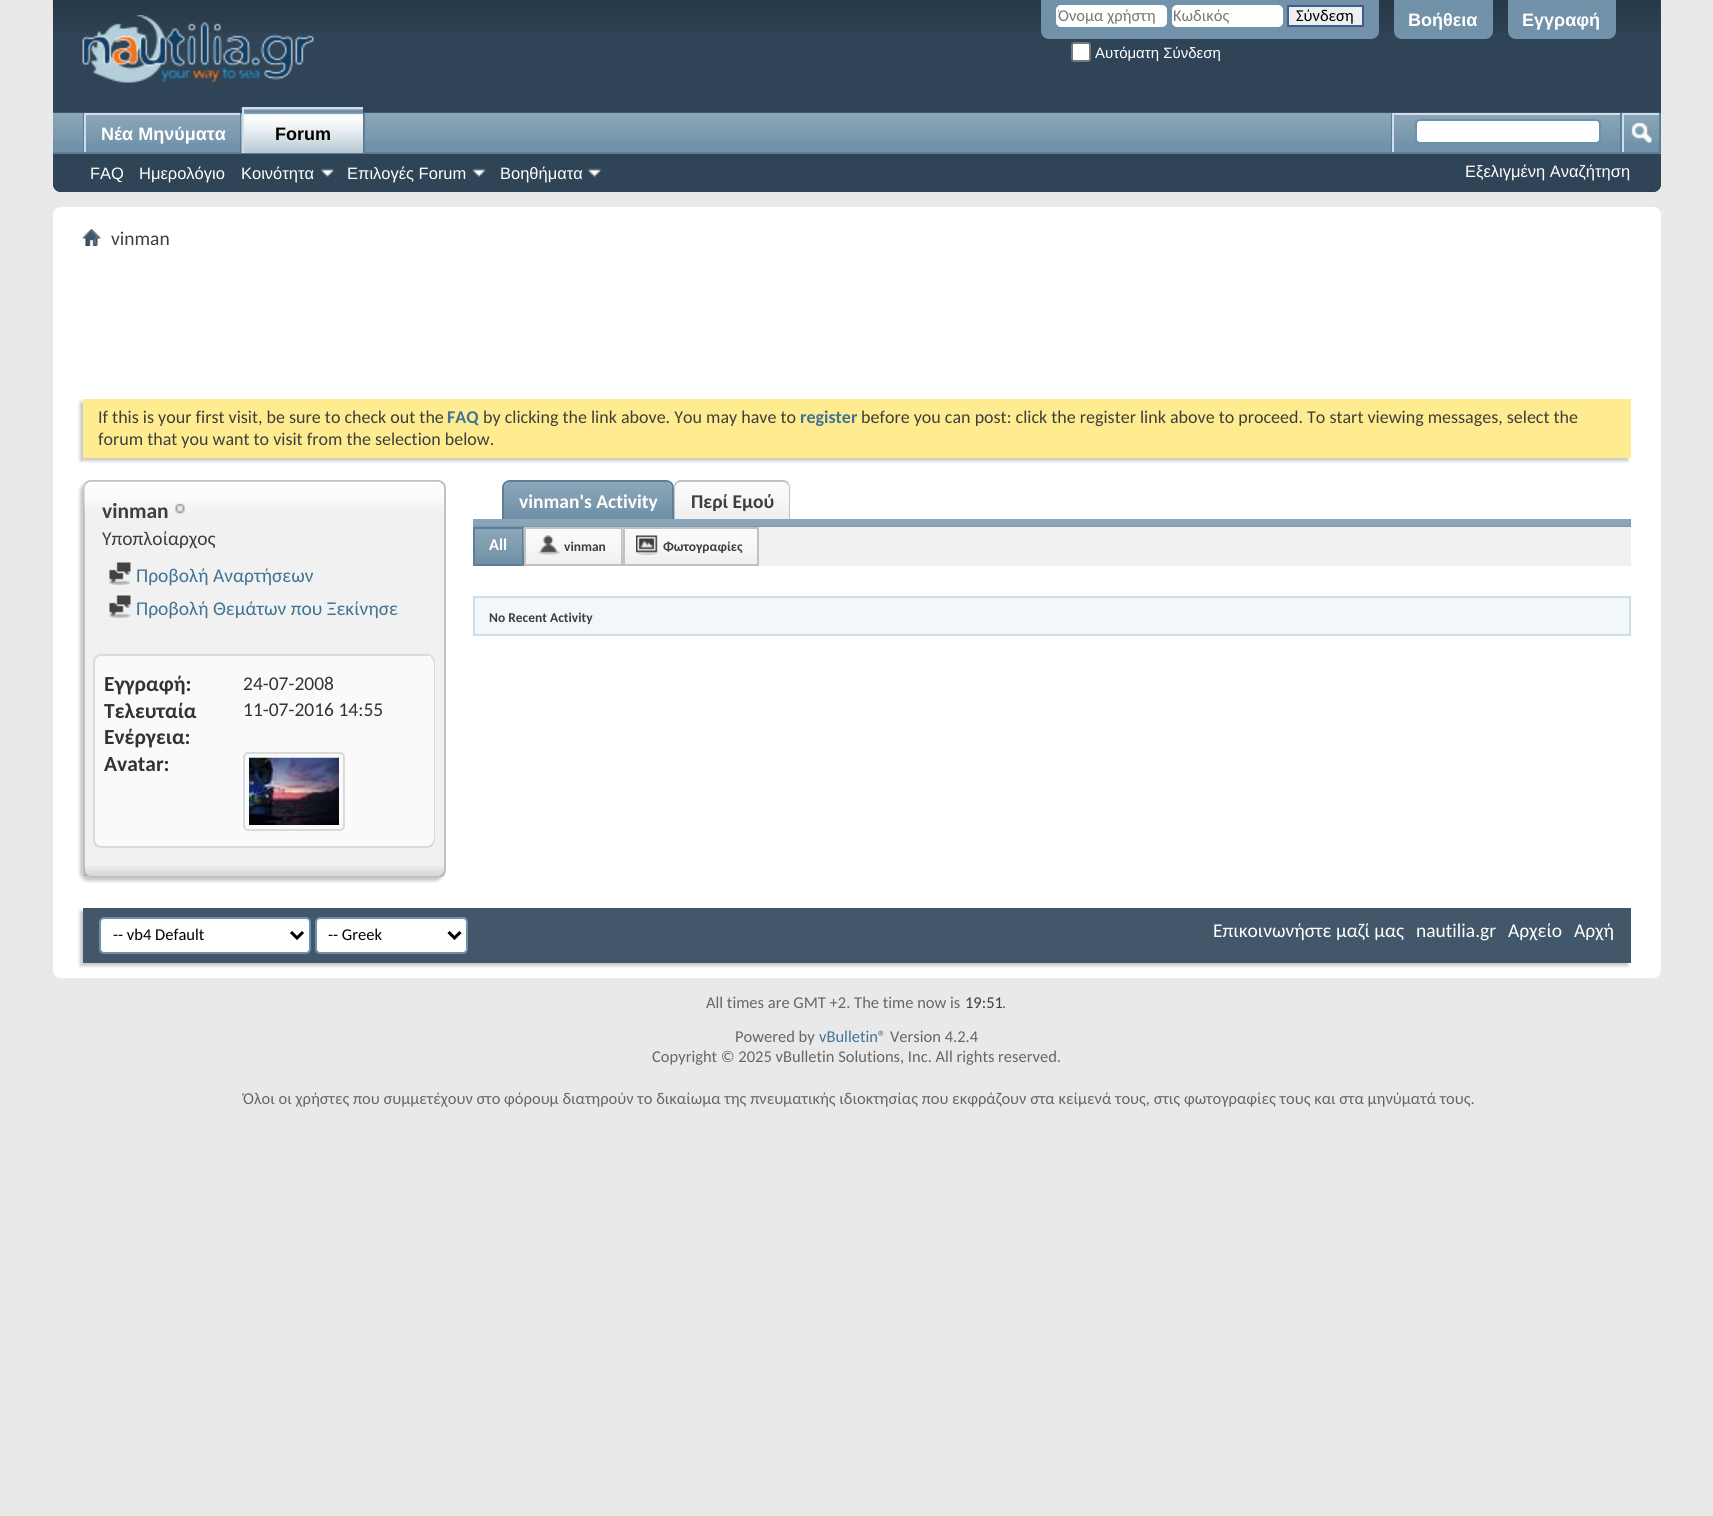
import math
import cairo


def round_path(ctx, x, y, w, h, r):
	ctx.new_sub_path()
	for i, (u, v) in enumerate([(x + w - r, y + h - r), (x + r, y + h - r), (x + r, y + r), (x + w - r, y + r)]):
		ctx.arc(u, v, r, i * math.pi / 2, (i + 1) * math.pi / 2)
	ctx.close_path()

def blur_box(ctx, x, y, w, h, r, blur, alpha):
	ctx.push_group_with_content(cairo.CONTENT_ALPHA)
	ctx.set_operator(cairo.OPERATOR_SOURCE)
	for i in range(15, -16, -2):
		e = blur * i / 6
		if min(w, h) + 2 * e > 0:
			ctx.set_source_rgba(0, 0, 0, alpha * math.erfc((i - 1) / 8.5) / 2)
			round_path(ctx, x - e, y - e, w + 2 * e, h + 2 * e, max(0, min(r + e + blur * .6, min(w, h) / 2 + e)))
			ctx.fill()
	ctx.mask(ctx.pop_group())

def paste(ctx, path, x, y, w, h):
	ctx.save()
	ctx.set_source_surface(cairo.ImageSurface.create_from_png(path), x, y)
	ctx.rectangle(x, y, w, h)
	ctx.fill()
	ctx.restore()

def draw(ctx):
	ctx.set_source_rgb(0.914, 0.914, 0.914)
	ctx.paint()
	ctx.set_source_rgb(0.184, 0.267, 0.337)
	ctx.new_path()
	ctx.move_to(53, 0)
	ctx.line_to(1661, 0)
	ctx.line_to(1661, 184)
	ctx.curve_to(1661, 188.5, 1657.5, 192, 1653, 192)
	ctx.line_to(61, 192)
	ctx.curve_to(56.5, 192, 53, 188.5, 53, 184)
	ctx.close_path()
	ctx.fill()
	paste(ctx, 'media/1.png', 52, 0, 1608, 33)
	paste(ctx, 'media/2.png', 82, 15, 232, 68)
	ctx.set_source_rgb(0.443, 0.573, 0.659)
	ctx.new_path()
	ctx.move_to(1041, 0)
	ctx.line_to(1379, 0)
	ctx.line_to(1379, 31)
	ctx.curve_to(1379, 35.5, 1375.5, 39, 1371, 39)
	ctx.line_to(1049, 39)
	ctx.curve_to(1044.5, 39, 1041, 35.5, 1041, 31)
	ctx.close_path()
	ctx.fill()
	ctx.set_source_rgb(1, 1, 1)
	round_path(ctx, 1056, 5, 111, 22, 5)
	ctx.fill()
	ctx.save()
	ctx.rectangle(1058, 6, 108, 20)
	ctx.clip()
	ctx.select_font_face('Carlito')
	ctx.set_font_size(16.5)
	ctx.set_source_rgb(0.467, 0.467, 0.467)
	ctx.move_to(1058, 21)
	ctx.show_text('Όνομα χρήστη')
	ctx.restore()
	round_path(ctx, 1172, 5, 111, 22, 5)
	ctx.fill()
	ctx.select_font_face('Carlito')
	ctx.set_font_size(16.5)
	ctx.set_source_rgb(0.467, 0.467, 0.467)
	ctx.move_to(1173, 21)
	ctx.show_text('Κωδικός')
	ctx.set_source_rgb(0.937, 0.937, 0.937)
	ctx.rectangle(1288, 6, 75, 20)
	ctx.fill_preserve()
	ctx.set_source_rgb(0.255, 0.365, 0.553)
	ctx.stroke()
	ctx.set_source_rgb(0, 0, 0)
	ctx.move_to(1296, 21)
	ctx.show_text('Σύνδεση')
	ctx.set_source_rgb(1, 1, 1)
	round_path(ctx, 1072, 43, 18, 18, 2)
	ctx.fill_preserve()
	ctx.set_source_rgb(0.463, 0.463, 0.463)
	ctx.stroke()
	ctx.select_font_face('Liberation Sans')
	ctx.set_font_size(15)
	ctx.set_source_rgb(1, 1, 1)
	ctx.move_to(1095, 58)
	ctx.show_text('Αυτόματη Σύνδεση')
	ctx.set_source_rgb(0.443, 0.573, 0.659)
	ctx.new_path()
	ctx.move_to(1394, 0)
	ctx.line_to(1493, 0)
	ctx.line_to(1493, 31)
	ctx.curve_to(1493, 35.5, 1489.5, 39, 1485, 39)
	ctx.line_to(1402, 39)
	ctx.curve_to(1397.5, 39, 1394, 35.5, 1394, 31)
	ctx.close_path()
	ctx.fill()
	ctx.select_font_face('Liberation Sans', cairo.FONT_SLANT_NORMAL, cairo.FONT_WEIGHT_BOLD)
	ctx.set_font_size(18)
	ctx.set_source_rgb(1, 1, 1)
	ctx.move_to(1408, 26)
	ctx.show_text('Βοήθεια')
	ctx.set_source_rgb(0.443, 0.573, 0.659)
	ctx.new_path()
	ctx.move_to(1508, 0)
	ctx.line_to(1616, 0)
	ctx.line_to(1616, 31)
	ctx.curve_to(1616, 35.5, 1612.5, 39, 1608, 39)
	ctx.line_to(1516, 39)
	ctx.curve_to(1511.5, 39, 1508, 35.5, 1508, 31)
	ctx.close_path()
	ctx.fill()
	ctx.set_source_rgb(1, 1, 1)
	ctx.move_to(1522, 26)
	ctx.show_text('Εγγραφή')
	ctx.set_source_rgb(0.184, 0.267, 0.337)
	ctx.new_path()
	ctx.move_to(53, 113)
	ctx.line_to(1661, 113)
	ctx.line_to(1661, 184)
	ctx.curve_to(1661, 188.5, 1657.5, 192, 1653, 192)
	ctx.line_to(61, 192)
	ctx.curve_to(56.5, 192, 53, 188.5, 53, 184)
	ctx.close_path()
	ctx.fill()
	ctx.set_source_rgb(0.443, 0.573, 0.659)
	ctx.rectangle(53, 113, 1606, 39)
	ctx.fill()
	paste(ctx, 'media/3.png', 53, 112, 1608, 30)
	ctx.set_source_rgb(0.353, 0.498, 0.592)
	ctx.rectangle(240, 113, 2, 40)
	ctx.rectangle(83, 113, 1, 40)
	ctx.fill()
	ctx.set_source_rgb(0.443, 0.573, 0.659)
	ctx.rectangle(86, 115, 154, 27)
	ctx.fill()
	paste(ctx, 'media/4.png', 86, 115, 154, 28)
	ctx.set_source_rgb(0.808, 0.875, 0.922)
	ctx.rectangle(84, 113, 156, 2)
	ctx.fill()
	ctx.rectangle(84, 113, 2, 40)
	ctx.fill()
	ctx.set_source_rgb(1, 1, 1)
	ctx.move_to(101, 140)
	ctx.show_text('Νέα Μηνύματα')
	ctx.set_source_rgb(0.353, 0.498, 0.592)
	ctx.rectangle(363, 113, 2, 39)
	ctx.rectangle(53, 152, 1608, 2)
	ctx.fill()
	ctx.set_source_rgb(0.443, 0.573, 0.659)
	ctx.rectangle(244, 109, 119, 44)
	ctx.fill()
	paste(ctx, 'media/5.png', 241, 108, 122, 45)
	ctx.set_source_rgb(0.808, 0.875, 0.922)
	ctx.rectangle(242, 107, 121, 2)
	ctx.fill()
	ctx.rectangle(242, 107, 2, 46)
	ctx.fill()
	ctx.set_source_rgb(0, 0, 0)
	ctx.move_to(275, 140)
	ctx.show_text('Forum')
	ctx.select_font_face('Liberation Sans')
	ctx.set_font_size(16.5)
	ctx.set_source_rgb(1, 1, 1)
	for x, y, s in [
		(90, 179, 'FAQ'),
		(139, 179, 'Ημερολόγιο'),
		(241, 179, 'Κοινότητα'),
	]:
		ctx.move_to(x, y)
		ctx.show_text(s)
	paste(ctx, 'media/6.png', 320, 168, 15, 9)
	ctx.move_to(347, 179)
	ctx.show_text('Επιλογές Forum')
	paste(ctx, 'media/7.png', 472, 168, 14, 9)
	ctx.move_to(500, 179)
	ctx.show_text('Βοηθήματα')
	paste(ctx, 'media/6.png', 587, 168, 15, 9)
	ctx.set_source_rgb(0.353, 0.498, 0.592)
	ctx.rectangle(1391, 113, 1, 39)
	ctx.fill()
	ctx.set_source_rgb(0.808, 0.875, 0.922)
	ctx.rectangle(1392, 113, 228, 2)
	ctx.rectangle(1392, 113, 2, 39)
	ctx.fill()
	ctx.set_source_rgb(1, 1, 1)
	round_path(ctx, 1416, 120, 184, 23, 4)
	ctx.fill_preserve()
	ctx.set_source_rgb(0.42, 0.569, 0.671)
	ctx.stroke()
	ctx.set_source_rgb(0.353, 0.498, 0.592)
	ctx.rectangle(1659, 113, 2, 39)
	ctx.rectangle(1620, 113, 2, 39)
	ctx.fill()
	ctx.set_source_rgb(0.808, 0.875, 0.922)
	ctx.rectangle(1622, 113, 37, 2)
	ctx.rectangle(1622, 113, 2, 39)
	ctx.fill()
	paste(ctx, 'media/8.png', 1631, 122, 21, 22)
	ctx.set_source_rgb(1, 1, 1)
	ctx.move_to(1465, 177)
	ctx.show_text('Εξελιγμένη Αναζήτηση')
	round_path(ctx, 53, 207, 1608, 771, 8)
	ctx.fill()
	paste(ctx, 'media/9.png', 82, 229, 19, 17)
	ctx.select_font_face('Carlito')
	ctx.set_font_size(19.5)
	ctx.set_source_rgb(0.243, 0.243, 0.243)
	ctx.move_to(111, 245)
	ctx.show_text('vinman')
	ctx.set_source_rgb(0.784, 0.784, 0.784)
	blur_box(ctx, 80, 402, 1548, 59, 0, 1.5, 1)
	ctx.set_source_rgb(1, 0.922, 0.565)
	ctx.rectangle(83, 399, 1548, 59)
	ctx.fill()
	ctx.set_font_size(18)
	ctx.set_source_rgb(0.243, 0.243, 0.243)
	ctx.move_to(98, 423)
	ctx.show_text('If this is your first visit, be sure to check out the')
	ctx.select_font_face('Carlito', cairo.FONT_SLANT_NORMAL, cairo.FONT_WEIGHT_BOLD)
	ctx.set_source_rgb(0.255, 0.451, 0.58)
	ctx.move_to(447, 423)
	ctx.show_text('FAQ')
	ctx.select_font_face('Carlito')
	ctx.set_source_rgb(0.243, 0.243, 0.243)
	ctx.move_to(483, 423)
	ctx.show_text('by clicking the link above. You may have to')
	ctx.select_font_face('Carlito', cairo.FONT_SLANT_NORMAL, cairo.FONT_WEIGHT_BOLD)
	ctx.set_source_rgb(0.255, 0.451, 0.58)
	ctx.move_to(800, 423)
	ctx.show_text('register')
	ctx.select_font_face('Carlito')
	ctx.set_source_rgb(0.243, 0.243, 0.243)
	ctx.move_to(861, 423)
	ctx.show_text('before you can post: click the register link above to proceed. To start viewing messages, select the')
	ctx.move_to(98, 445)
	ctx.show_text('forum that you want to visit from the selection below.')
	ctx.set_source_rgb(0.784, 0.784, 0.784)
	blur_box(ctx, 80, 483, 363, 398, 8, 1.5, 1)
	ctx.set_source_rgb(0.945, 0.945, 0.945)
	round_path(ctx, 83, 480, 363, 398, 8)
	ctx.fill()
	paste(ctx, 'media/10.png', 83, 481, 362, 23)
	round_path(ctx, 84, 481, 361, 396, 7)
	ctx.set_source_rgb(0.757, 0.757, 0.757)
	ctx.stroke()
	paste(ctx, 'media/11.png', 84, 481, 360, 32)
	ctx.select_font_face('Carlito', cairo.FONT_SLANT_NORMAL, cairo.FONT_WEIGHT_BOLD)
	ctx.set_font_size(21.5)
	ctx.set_source_rgb(0.243, 0.243, 0.243)
	ctx.move_to(102, 518)
	ctx.show_text('vinman')
	paste(ctx, 'media/12.png', 175, 503, 10, 11)
	ctx.select_font_face('Carlito')
	ctx.set_font_size(19.5)
	ctx.move_to(102, 545)
	ctx.show_text('Υποπλοίαρχος')
	paste(ctx, 'media/13.png', 109, 562, 22, 23)
	ctx.set_source_rgb(0.255, 0.451, 0.58)
	ctx.move_to(136, 582)
	ctx.show_text('Προβολή Αναρτήσεων')
	paste(ctx, 'media/13.png', 109, 595, 22, 23)
	ctx.move_to(136, 615)
	ctx.show_text('Προβολή Θεμάτων που Ξεκίνησε')
	round_path(ctx, 94, 655, 340, 192, 7)
	ctx.set_source_rgb(0.855, 0.855, 0.855)
	ctx.stroke()
	ctx.set_source_rgb(0.98, 0.98, 0.98)
	round_path(ctx, 95, 656, 339, 190, 8)
	ctx.fill()
	ctx.rectangle(99, 656, 332, 2)
	ctx.fill()
	ctx.select_font_face('Carlito', cairo.FONT_SLANT_NORMAL, cairo.FONT_WEIGHT_BOLD)
	ctx.set_font_size(21.5)
	ctx.set_source_rgb(0.2, 0.2, 0.2)
	ctx.move_to(104, 691)
	ctx.show_text('Εγγραφή:')
	ctx.select_font_face('Carlito')
	ctx.set_font_size(19.5)
	ctx.move_to(243, 690)
	ctx.show_text('24-07-2008')
	ctx.select_font_face('Carlito', cairo.FONT_SLANT_NORMAL, cairo.FONT_WEIGHT_BOLD)
	ctx.set_font_size(21.5)
	ctx.move_to(104, 718)
	ctx.show_text('Τελευταία')
	ctx.move_to(104, 744)
	ctx.show_text('Ενέργεια:')
	ctx.select_font_face('Carlito')
	ctx.set_font_size(19.5)
	ctx.move_to(243, 716)
	ctx.show_text('11-07-2016 14:55')
	ctx.select_font_face('Carlito', cairo.FONT_SLANT_NORMAL, cairo.FONT_WEIGHT_BOLD)
	ctx.set_font_size(21.5)
	ctx.move_to(104, 771)
	ctx.show_text('Avatar:')
	round_path(ctx, 244, 753, 100, 77, 4)
	ctx.set_source_rgb(0.855, 0.855, 0.855)
	ctx.stroke()
	paste(ctx, 'media/14.png', 249, 757, 90, 68)
	paste(ctx, 'media/15.png', 84, 866, 360, 10)
	ctx.set_source_rgb(0.443, 0.573, 0.659)
	ctx.new_path()
	ctx.move_to(510, 482)
	ctx.line_to(666, 482)
	ctx.curve_to(669.5, 482, 672, 484.5, 672, 488)
	ctx.line_to(672, 519)
	ctx.line_to(504, 519)
	ctx.line_to(504, 488)
	ctx.curve_to(504, 484.5, 506.5, 482, 510, 482)
	ctx.close_path()
	ctx.fill()
	paste(ctx, 'media/16.png', 504, 482, 168, 29)
	ctx.set_source_rgb(0.353, 0.498, 0.592)
	ctx.set_fill_rule(cairo.FILL_RULE_EVEN_ODD)
	ctx.new_path()
	ctx.move_to(510, 480)
	ctx.line_to(666, 480)
	ctx.curve_to(670, 480, 674, 483, 674, 488)
	ctx.line_to(674, 519)
	ctx.line_to(502, 519)
	ctx.line_to(502, 488)
	ctx.curve_to(502, 483, 506, 480, 510, 480)
	ctx.close_path()
	ctx.move_to(510, 482)
	ctx.line_to(666, 482)
	ctx.curve_to(669, 482, 672, 484, 672, 488)
	ctx.line_to(672, 519)
	ctx.line_to(504, 519)
	ctx.line_to(504, 488)
	ctx.curve_to(504, 484, 507, 482, 510, 482)
	ctx.close_path()
	ctx.fill()
	ctx.set_font_size(19.5)
	ctx.set_source_rgb(1, 1, 1)
	ctx.move_to(519, 508)
	ctx.show_text('vinman\'s Activity')
	ctx.set_source_rgb(0.945, 0.945, 0.945)
	ctx.new_path()
	ctx.move_to(681, 482)
	ctx.line_to(783, 482)
	ctx.curve_to(786.5, 482, 789, 484.5, 789, 488)
	ctx.line_to(789, 519)
	ctx.line_to(675, 519)
	ctx.line_to(675, 488)
	ctx.curve_to(675, 484.5, 677.5, 482, 681, 482)
	ctx.close_path()
	ctx.fill()
	paste(ctx, 'media/17.png', 673, 482, 116, 29)
	ctx.set_source_rgb(0.757, 0.757, 0.757)
	ctx.new_path()
	ctx.move_to(681, 480)
	ctx.line_to(783, 480)
	ctx.curve_to(787, 480, 790, 483, 790, 488)
	ctx.line_to(790, 519)
	ctx.line_to(674, 519)
	ctx.line_to(674, 488)
	ctx.curve_to(674, 483, 677, 480, 681, 480)
	ctx.close_path()
	ctx.move_to(681, 482)
	ctx.line_to(783, 482)
	ctx.curve_to(786, 482, 789, 484, 789, 488)
	ctx.line_to(789, 519)
	ctx.line_to(675, 519)
	ctx.line_to(675, 488)
	ctx.curve_to(675, 484, 678, 482, 681, 482)
	ctx.close_path()
	ctx.fill()
	ctx.set_source_rgb(0.243, 0.243, 0.243)
	ctx.move_to(691, 508)
	ctx.show_text('Περί Εμού')
	ctx.set_source_rgb(0.443, 0.573, 0.659)
	ctx.rectangle(473, 519, 1158, 8)
	ctx.fill()
	paste(ctx, 'media/18.png', 473, 519, 1158, 8)
	ctx.set_source_rgb(0.945, 0.945, 0.945)
	ctx.rectangle(526, 527, 1105, 39)
	ctx.fill()
	ctx.set_source_rgb(0.443, 0.573, 0.659)
	ctx.rectangle(475, 529, 47, 35)
	ctx.fill()
	paste(ctx, 'media/19.png', 475, 529, 47, 28)
	ctx.rectangle(474, 528, 49, 37)
	ctx.set_source_rgb(0.353, 0.498, 0.592)
	ctx.stroke()
	ctx.set_font_size(16.5)
	ctx.set_source_rgb(1, 1, 1)
	ctx.move_to(489, 550)
	ctx.show_text('All')
	paste(ctx, 'media/20.png', 523, 528, 98, 32)
	ctx.rectangle(525, 528, 97, 37)
	ctx.set_source_rgb(0.757, 0.757, 0.757)
	ctx.stroke()
	paste(ctx, 'media/21.png', 538, 535, 22, 20)
	ctx.set_font_size(13.5)
	ctx.set_source_rgb(0.243, 0.243, 0.243)
	ctx.move_to(564, 551)
	ctx.show_text('vinman')
	paste(ctx, 'media/22.png', 622, 528, 135, 29)
	ctx.rectangle(624, 528, 134, 37)
	ctx.set_source_rgb(0.757, 0.757, 0.757)
	ctx.stroke()
	paste(ctx, 'media/23.png', 636, 535, 22, 20)
	ctx.set_source_rgb(0.243, 0.243, 0.243)
	ctx.move_to(663, 551)
	ctx.show_text('Φωτογραφίες')
	ctx.set_source_rgb(0.949, 0.965, 0.973)
	ctx.rectangle(474, 597, 1156, 38)
	ctx.fill_preserve()
	ctx.set_source_rgb(0.808, 0.875, 0.922)
	ctx.stroke()
	ctx.set_source_rgb(0.243, 0.243, 0.243)
	ctx.move_to(489, 622)
	ctx.show_text('No Recent Activity')
	ctx.set_source_rgb(0.784, 0.784, 0.784)
	blur_box(ctx, 80, 911, 1548, 55, 0, 1.5, 1)
	ctx.set_source_rgb(0.259, 0.341, 0.412)
	ctx.rectangle(83, 908, 1548, 55)
	ctx.fill()
	ctx.set_source_rgb(1, 1, 1)
	round_path(ctx, 100, 918, 210, 35, 4)
	ctx.fill_preserve()
	ctx.set_source_rgb(0.42, 0.569, 0.671)
	ctx.stroke()
	ctx.new_path()
	ctx.move_to(291, 932)
	ctx.line_to(297, 938)
	ctx.line_to(303, 932)
	ctx.set_source_rgb(0, 0, 0)
	ctx.set_line_width(3)
	ctx.stroke()
	ctx.select_font_face('Carlito')
	ctx.set_font_size(16.5)
	ctx.move_to(113, 940)
	ctx.show_text('-- vb4 Default')
	ctx.set_source_rgb(1, 1, 1)
	round_path(ctx, 316, 918, 151, 35, 4)
	ctx.fill_preserve()
	ctx.set_source_rgb(0.42, 0.569, 0.671)
	ctx.set_line_width(2)
	ctx.stroke()
	ctx.new_path()
	ctx.move_to(448.5, 932)
	ctx.line_to(454.5, 938)
	ctx.line_to(460.5, 932)
	ctx.set_source_rgb(0, 0, 0)
	ctx.set_line_width(3)
	ctx.stroke()
	ctx.move_to(328, 940)
	ctx.show_text('-- Greek')
	ctx.set_font_size(19.5)
	ctx.set_source_rgb(1, 1, 1)
	for x, y, s in [
		(1213, 937, 'Επικοινωνήστε μαζί μας'),
		(1416, 937, 'nautilia.gr'),
		(1508, 937, 'Αρχείο'),
		(1574, 937, 'Αρχή'),
	]:
		ctx.move_to(x, y)
		ctx.show_text(s)
	ctx.set_font_size(16.5)
	ctx.set_source_rgb(0.4, 0.4, 0.4)
	ctx.move_to(706, 1008)
	ctx.show_text('All times are GMT +2. The time now is')
	ctx.set_source_rgb(0.243, 0.243, 0.243)
	ctx.move_to(965, 1008)
	ctx.show_text('19:51')
	ctx.set_source_rgb(0.4, 0.4, 0.4)
	ctx.move_to(1002, 1008)
	ctx.show_text('.')
	ctx.move_to(735, 1042)
	ctx.show_text('Powered by')
	ctx.set_source_rgb(0.255, 0.451, 0.58)
	ctx.move_to(819, 1042)
	ctx.show_text('vBulletin®')
	ctx.set_source_rgb(0.4, 0.4, 0.4)
	for x, y, s in [
		(890, 1042, 'Version 4.2.4'),
		(652, 1062, 'Copyright © 2025 vBulletin Solutions, Inc. All rights reserved.'),
		(243, 1104, 'Όλοι οι χρήστες που συμμετέχουν στο φόρουμ διατηρούν το δικαίωμα της πνευματικής ιδιοκτησίας που εκφράζουν στα κείμενά τους, στις φωτογραφίες τους και στα μηνύματά τους.'),
	]:
		ctx.move_to(x, y)
		ctx.show_text(s)


surface = cairo.ImageSurface(cairo.FORMAT_RGB24, 1713, 1516)
ctx = cairo.Context(surface)
options = cairo.FontOptions()
options.set_hint_metrics(cairo.HINT_METRICS_OFF)
options.set_hint_style(cairo.HINT_STYLE_NONE)
ctx.set_font_options(options)
ctx.set_miter_limit(4)
draw(ctx)
surface.write_to_png('image.png')
